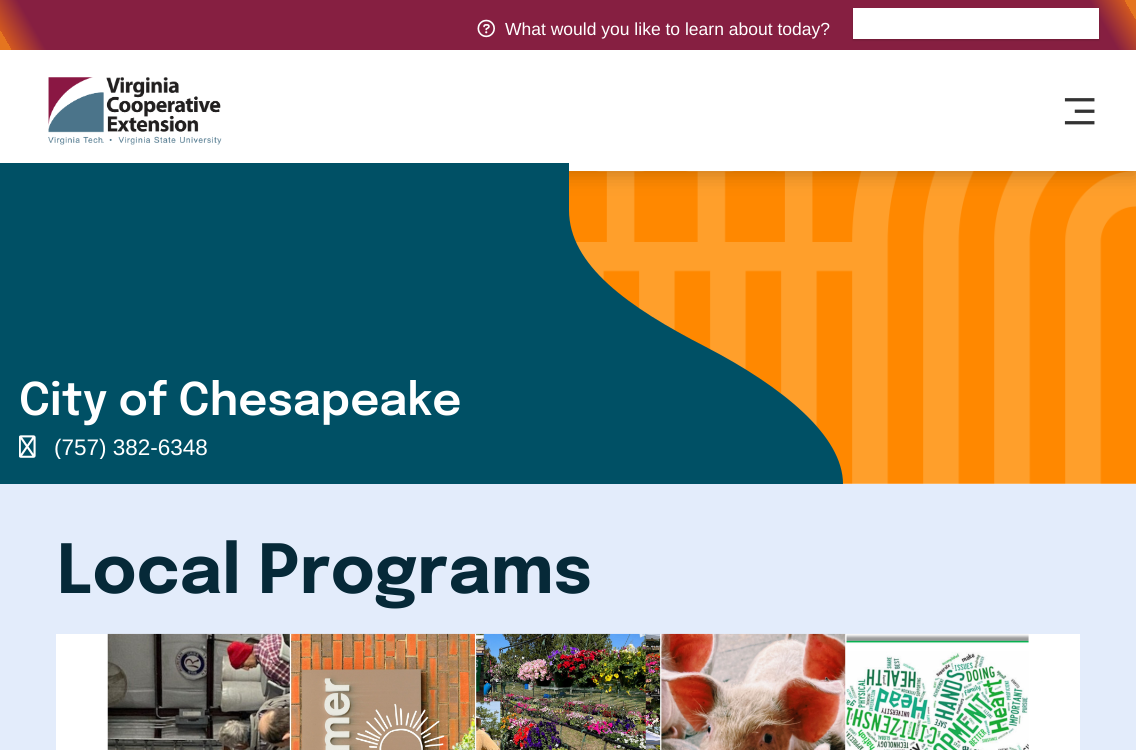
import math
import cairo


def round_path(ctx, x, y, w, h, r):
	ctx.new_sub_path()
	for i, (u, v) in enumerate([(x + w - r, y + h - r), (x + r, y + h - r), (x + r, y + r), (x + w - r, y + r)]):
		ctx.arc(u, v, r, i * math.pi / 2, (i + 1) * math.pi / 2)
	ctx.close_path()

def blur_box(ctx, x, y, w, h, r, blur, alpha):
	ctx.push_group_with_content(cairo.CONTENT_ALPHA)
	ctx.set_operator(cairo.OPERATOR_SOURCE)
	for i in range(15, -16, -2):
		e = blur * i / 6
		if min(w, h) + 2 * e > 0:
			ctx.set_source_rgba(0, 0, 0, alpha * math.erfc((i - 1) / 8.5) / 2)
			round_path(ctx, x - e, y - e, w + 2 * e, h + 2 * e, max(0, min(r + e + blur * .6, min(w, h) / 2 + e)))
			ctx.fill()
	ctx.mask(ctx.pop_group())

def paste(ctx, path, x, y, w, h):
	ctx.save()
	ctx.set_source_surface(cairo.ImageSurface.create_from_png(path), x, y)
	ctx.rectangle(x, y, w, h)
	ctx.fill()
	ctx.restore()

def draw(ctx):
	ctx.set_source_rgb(1, 1, 1)
	ctx.paint()
	ctx.set_source_rgb(0.898, 0.882, 0.902)
	blur_box(ctx, 0, 0, 1136, 484, 0, 6, 1)
	paste(ctx, 'media/1.png', 569, 171, 567, 313)
	ctx.set_source_rgb(0, 0, 0)
	blur_box(ctx, 0, 54, 1136, 121, 0, 9.5, 0.2)
	gradient = cairo.LinearGradient(131, 277, 1005, -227)
	gradient.add_color_stop_rgba(0.01, 0.898, 0.459, 0.122, 1)
	gradient.add_color_stop_rgba(0.01, 0.82, 0.341, 0.122, 1)
	gradient.add_color_stop_rgba(0.04, 0.525, 0.122, 0.255, 1)
	gradient.add_color_stop_rgba(0.96, 0.525, 0.122, 0.255, 1)
	gradient.add_color_stop_rgba(0.99, 0.82, 0.341, 0.122, 1)
	gradient.add_color_stop_rgba(0.99, 0.898, 0.459, 0.122, 1)
	ctx.set_source(gradient)
	ctx.rectangle(0, 0, 1136, 50)
	ctx.fill()
	paste(ctx, 'media/2.png', 477, 19, 18, 19)
	ctx.select_font_face('Liberation Sans')
	ctx.set_font_size(17.5)
	ctx.set_source_rgb(1, 1, 1)
	ctx.move_to(505, 35)
	ctx.show_text('What would you like to learn about today?')
	ctx.set_source_rgb(0, 0, 0)
	blur_box(ctx, 853, 9, 246, 31, 0, 1, 0.2)
	ctx.set_source_rgb(1, 1, 1)
	ctx.rectangle(853, 8, 246, 31)
	ctx.fill()
	ctx.rectangle(0, 50, 1136, 121)
	ctx.fill()
	paste(ctx, 'media/3.png', 48, 77, 174, 68)
	paste(ctx, 'media/4.png', 1064, 98, 31, 27)
	ctx.set_source_rgb(0, 0.314, 0.396)
	ctx.rectangle(0, 163, 569, 321)
	ctx.fill()
	ctx.new_path()
	ctx.move_to(569, 210)
	ctx.line_to(569, 484)
	ctx.line_to(843, 484)
	ctx.curve_to(843, 436, 783, 387, 706, 347)
	ctx.curve_to(628, 307, 569, 265, 569, 210)
	ctx.close_path()
	ctx.fill()
	ctx.save()
	ctx.rectangle(19, 380, 1099, 79)
	ctx.clip()
	ctx.select_font_face('Epilogue SemiBold')
	ctx.set_font_size(45)
	ctx.set_source_rgb(1, 1, 1)
	ctx.move_to(19, 415)
	ctx.show_text('City of Chesapeake')
	ctx.restore()
	paste(ctx, 'media/5.png', 19, 435, 17, 23)
	ctx.save()
	ctx.rectangle(19, 380, 1099, 79)
	ctx.clip()
	ctx.set_font_size(22.5)
	ctx.set_source_rgb(1, 1, 1)
	ctx.move_to(54, 455)
	ctx.show_text('(757) 382-6348')
	ctx.restore()
	ctx.set_source_rgb(0.89, 0.922, 0.984)
	ctx.rectangle(0, 484, 1136, 266)
	ctx.fill()
	ctx.select_font_face('Epilogue', cairo.FONT_SLANT_NORMAL, cairo.FONT_WEIGHT_BOLD)
	ctx.set_font_size(67.5)
	ctx.set_source_rgb(0.027, 0.161, 0.22)
	ctx.move_to(57, 593)
	ctx.show_text('Local Programs')
	ctx.set_source_rgb(1, 1, 1)
	ctx.rectangle(56, 634, 1024, 116)
	ctx.fill()
	paste(ctx, 'media/6.png', 107, 633, 922, 117)


surface = cairo.ImageSurface(cairo.FORMAT_RGB24, 1136, 750)
ctx = cairo.Context(surface)
options = cairo.FontOptions()
options.set_hint_metrics(cairo.HINT_METRICS_OFF)
options.set_hint_style(cairo.HINT_STYLE_NONE)
ctx.set_font_options(options)
ctx.set_miter_limit(4)
draw(ctx)
surface.write_to_png('image.png')
